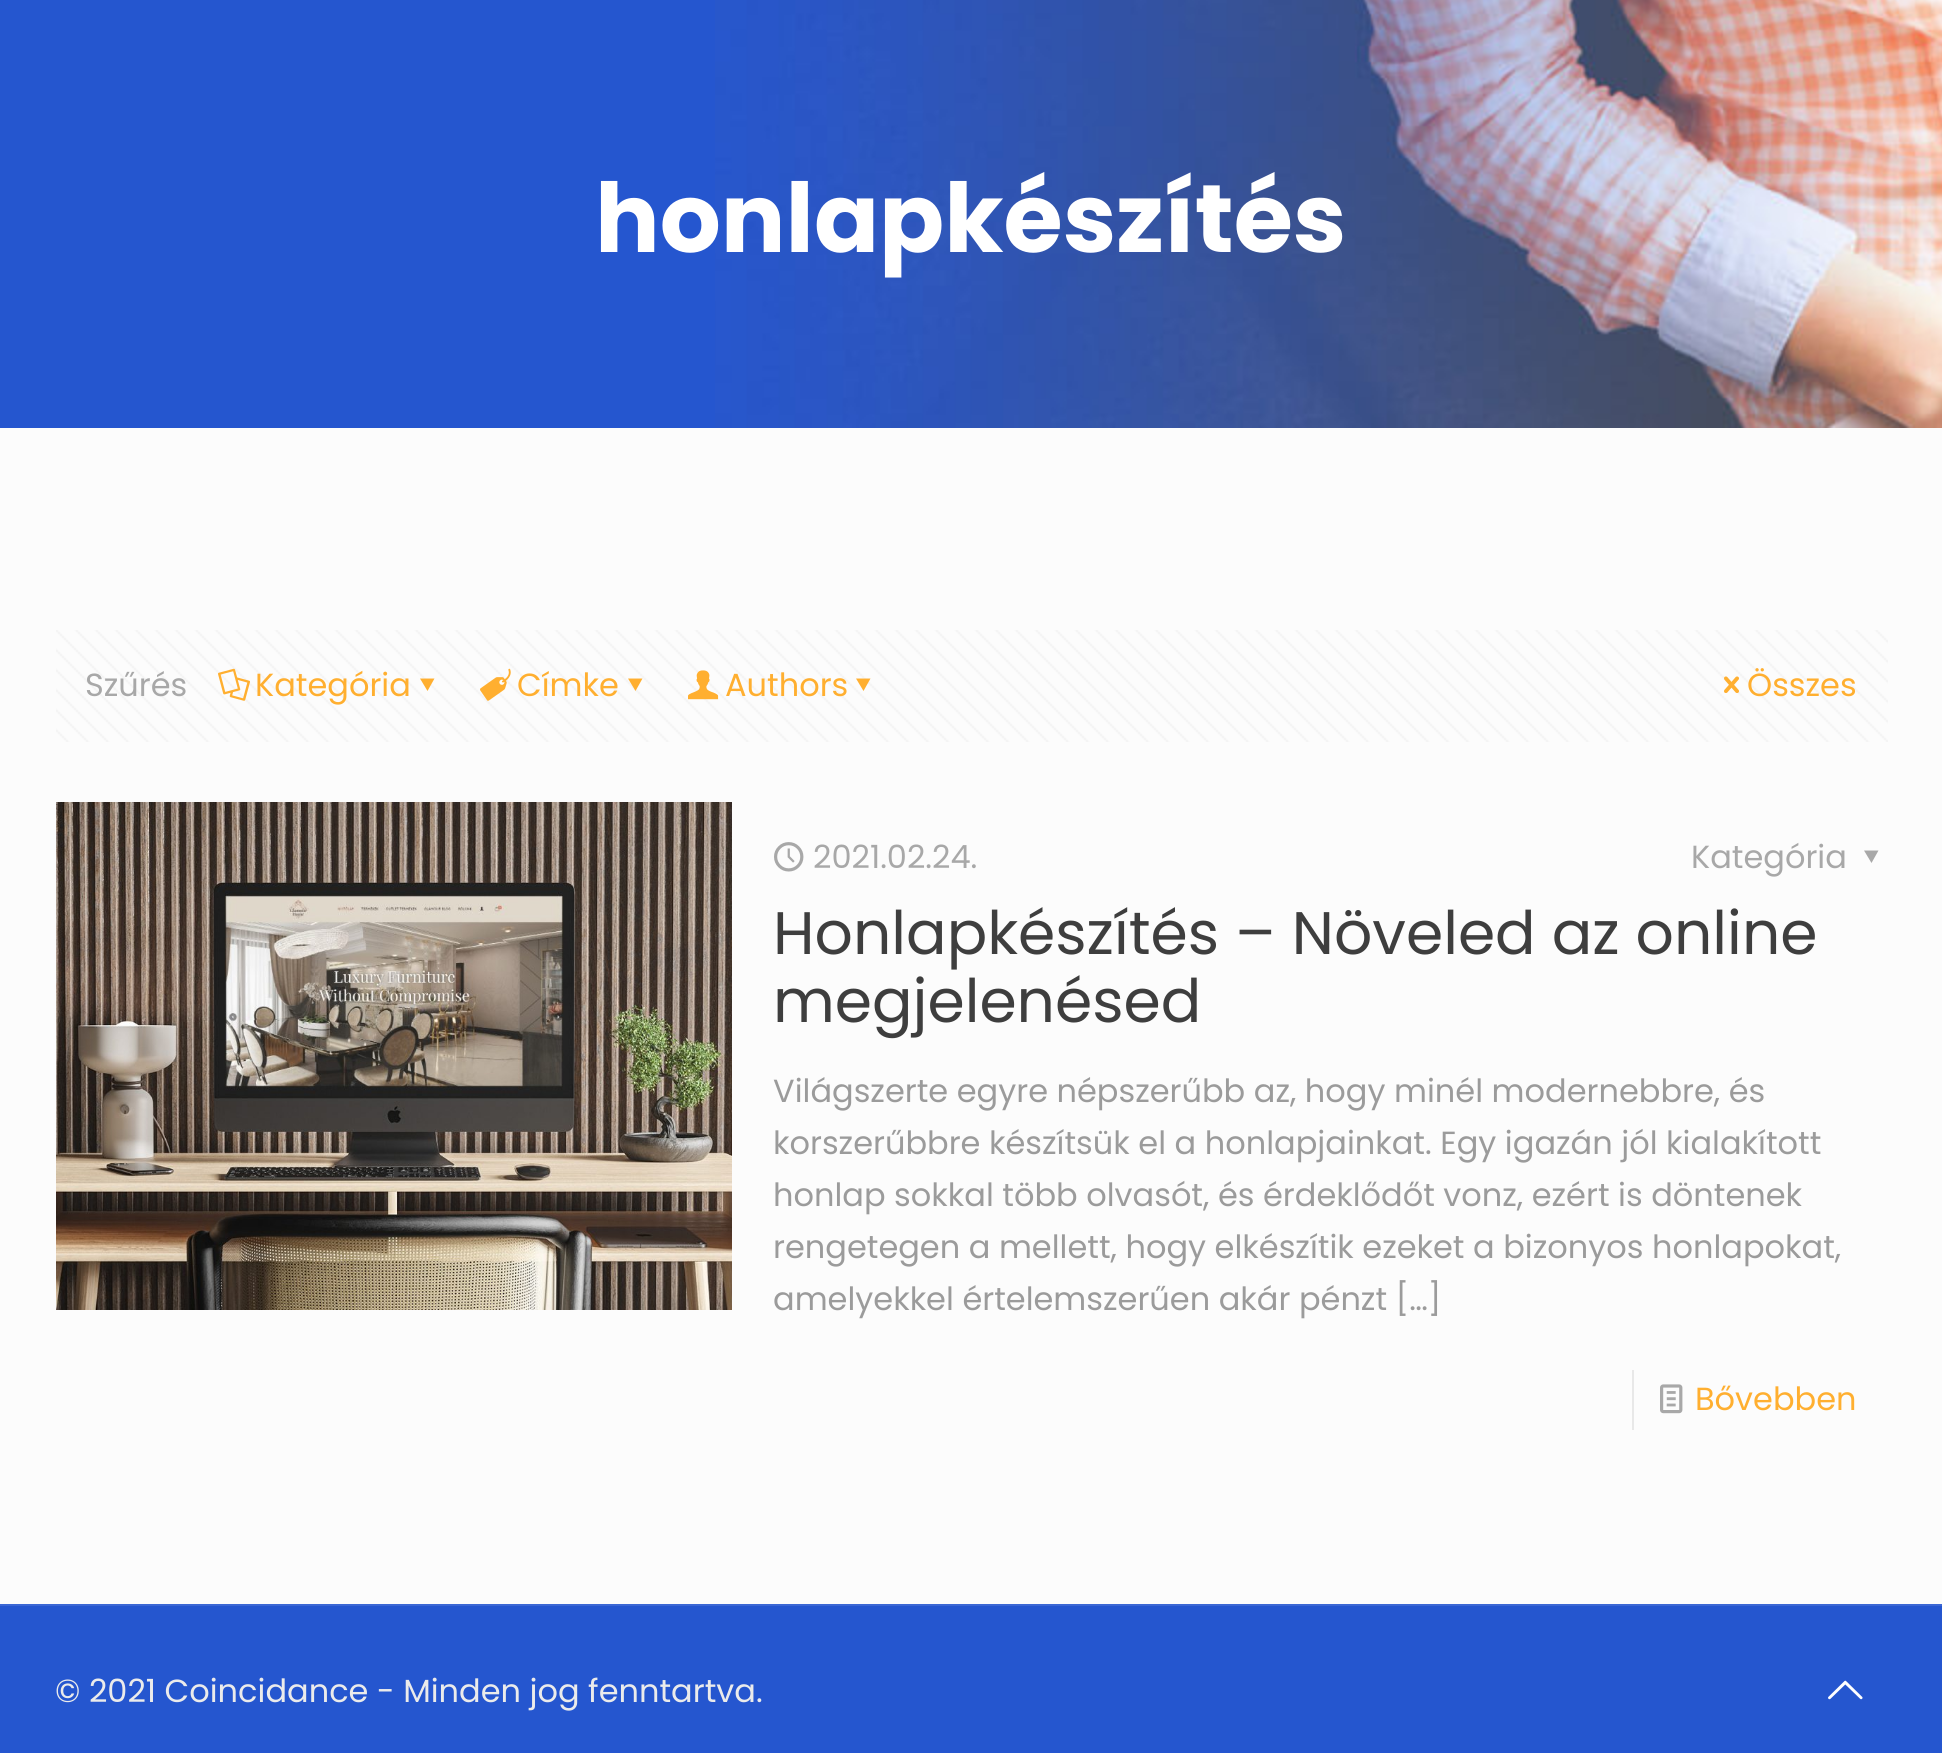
import math
import cairo


def paste(ctx, path, x, y, w, h):
	ctx.save()
	ctx.set_source_surface(cairo.ImageSurface.create_from_png(path), x, y)
	ctx.rectangle(x, y, w, h)
	ctx.fill()
	ctx.restore()

def draw(ctx):
	ctx.set_source_rgb(0.988, 0.988, 0.988)
	ctx.paint()
	ctx.set_source_rgb(0.145, 0.337, 0.812)
	ctx.rectangle(0, 0, 715, 428)
	ctx.fill()
	paste(ctx, 'media/1.png', 715, 0, 1227, 428)
	ctx.select_font_face('Poppins', cairo.FONT_SLANT_NORMAL, cairo.FONT_WEIGHT_BOLD)
	ctx.set_font_size(96)
	ctx.set_source_rgb(1, 1, 1)
	ctx.move_to(595, 252)
	ctx.show_text('honlapkészítés')
	paste(ctx, 'media/2.png', 56, 630, 1832, 112)
	ctx.select_font_face('Poppins')
	ctx.set_font_size(32)
	ctx.set_source_rgb(0.659, 0.659, 0.659)
	ctx.move_to(85, 696)
	ctx.show_text('Szűrés')
	paste(ctx, 'media/3.png', 218, 668, 32, 33)
	ctx.set_source_rgb(1, 0.686, 0.188)
	ctx.move_to(255, 696)
	ctx.show_text('Kategória')
	ctx.new_path()
	ctx.move_to(434.5, 678.5)
	ctx.line_to(427.5, 691)
	ctx.line_to(420, 678.5)
	ctx.close_path()
	ctx.fill()
	paste(ctx, 'media/4.png', 480, 668, 31, 33)
	ctx.move_to(517, 696)
	ctx.show_text('Címke')
	ctx.new_path()
	ctx.move_to(642.5, 678.5)
	ctx.line_to(635.5, 691)
	ctx.line_to(628, 678.5)
	ctx.close_path()
	ctx.fill()
	paste(ctx, 'media/5.png', 688, 670, 31, 30)
	ctx.move_to(725, 696)
	ctx.show_text('Authors')
	ctx.new_path()
	ctx.move_to(870.5, 678.5)
	ctx.line_to(863.5, 691)
	ctx.line_to(856, 678.5)
	ctx.close_path()
	ctx.fill()
	paste(ctx, 'media/6.png', 1724, 676, 15, 17)
	ctx.move_to(1747, 696)
	ctx.show_text('Összes')
	paste(ctx, 'media/7.png', 56, 802, 676, 508)
	paste(ctx, 'media/8.png', 774, 842, 30, 30)
	ctx.set_source_rgb(0.659, 0.659, 0.659)
	ctx.move_to(813, 868)
	ctx.show_text('2021.02.24.')
	ctx.move_to(1691, 868)
	ctx.show_text('Kategória')
	ctx.new_path()
	ctx.move_to(1878.5, 850.5)
	ctx.line_to(1871.5, 863)
	ctx.line_to(1864, 850.5)
	ctx.close_path()
	ctx.fill()
	ctx.set_font_size(60)
	ctx.set_source_rgb(0.243, 0.243, 0.243)
	ctx.move_to(773, 954)
	ctx.show_text('Honlapkészítés – Növeled az online')
	ctx.move_to(773, 1022)
	ctx.show_text('megjelenésed')
	ctx.set_font_size(32)
	ctx.set_source_rgb(0.608, 0.608, 0.608)
	for x, y, s in [
		(773, 1102, 'Világszerte egyre népszerűbb az, hogy minél modernebbre, és'),
		(773, 1154, 'korszerűbbre készítsük el a honlapjainkat. Egy igazán jól kialakított'),
		(773, 1206, 'honlap sokkal több olvasót, és érdeklődőt vonz, ezért is döntenek'),
		(773, 1258, 'rengetegen a mellett, hogy elkészítik ezeket a bizonyos honlapokat,'),
		(773, 1310, 'amelyekkel értelemszerűen akár pénzt […]'),
	]:
		ctx.move_to(x, y)
		ctx.show_text(s)
	ctx.set_source_rgb(0.91, 0.91, 0.91)
	ctx.rectangle(1632, 1370, 2, 60)
	ctx.fill()
	paste(ctx, 'media/9.png', 1660, 1384, 23, 30)
	ctx.set_source_rgb(1, 0.686, 0.188)
	ctx.move_to(1695, 1410)
	ctx.show_text('Bővebben')
	ctx.set_source_rgb(0.145, 0.337, 0.812)
	ctx.rectangle(0, 1606, 1942, 147)
	ctx.fill()
	ctx.set_source_rgb(0.231, 0.404, 0.831)
	ctx.rectangle(0, 1604, 1942, 2)
	ctx.fill()
	ctx.set_source_rgb(0.918, 0.918, 0.918)
	ctx.move_to(55, 1702)
	ctx.show_text('© 2021 Coincidance - Minden jog fenntartva.')
	paste(ctx, 'media/10.png', 1828, 1680, 35, 20)


surface = cairo.ImageSurface(cairo.FORMAT_RGB24, 1942, 1753)
ctx = cairo.Context(surface)
options = cairo.FontOptions()
options.set_hint_metrics(cairo.HINT_METRICS_OFF)
options.set_hint_style(cairo.HINT_STYLE_NONE)
ctx.set_font_options(options)
ctx.set_miter_limit(4)
draw(ctx)
surface.write_to_png('image.png')
